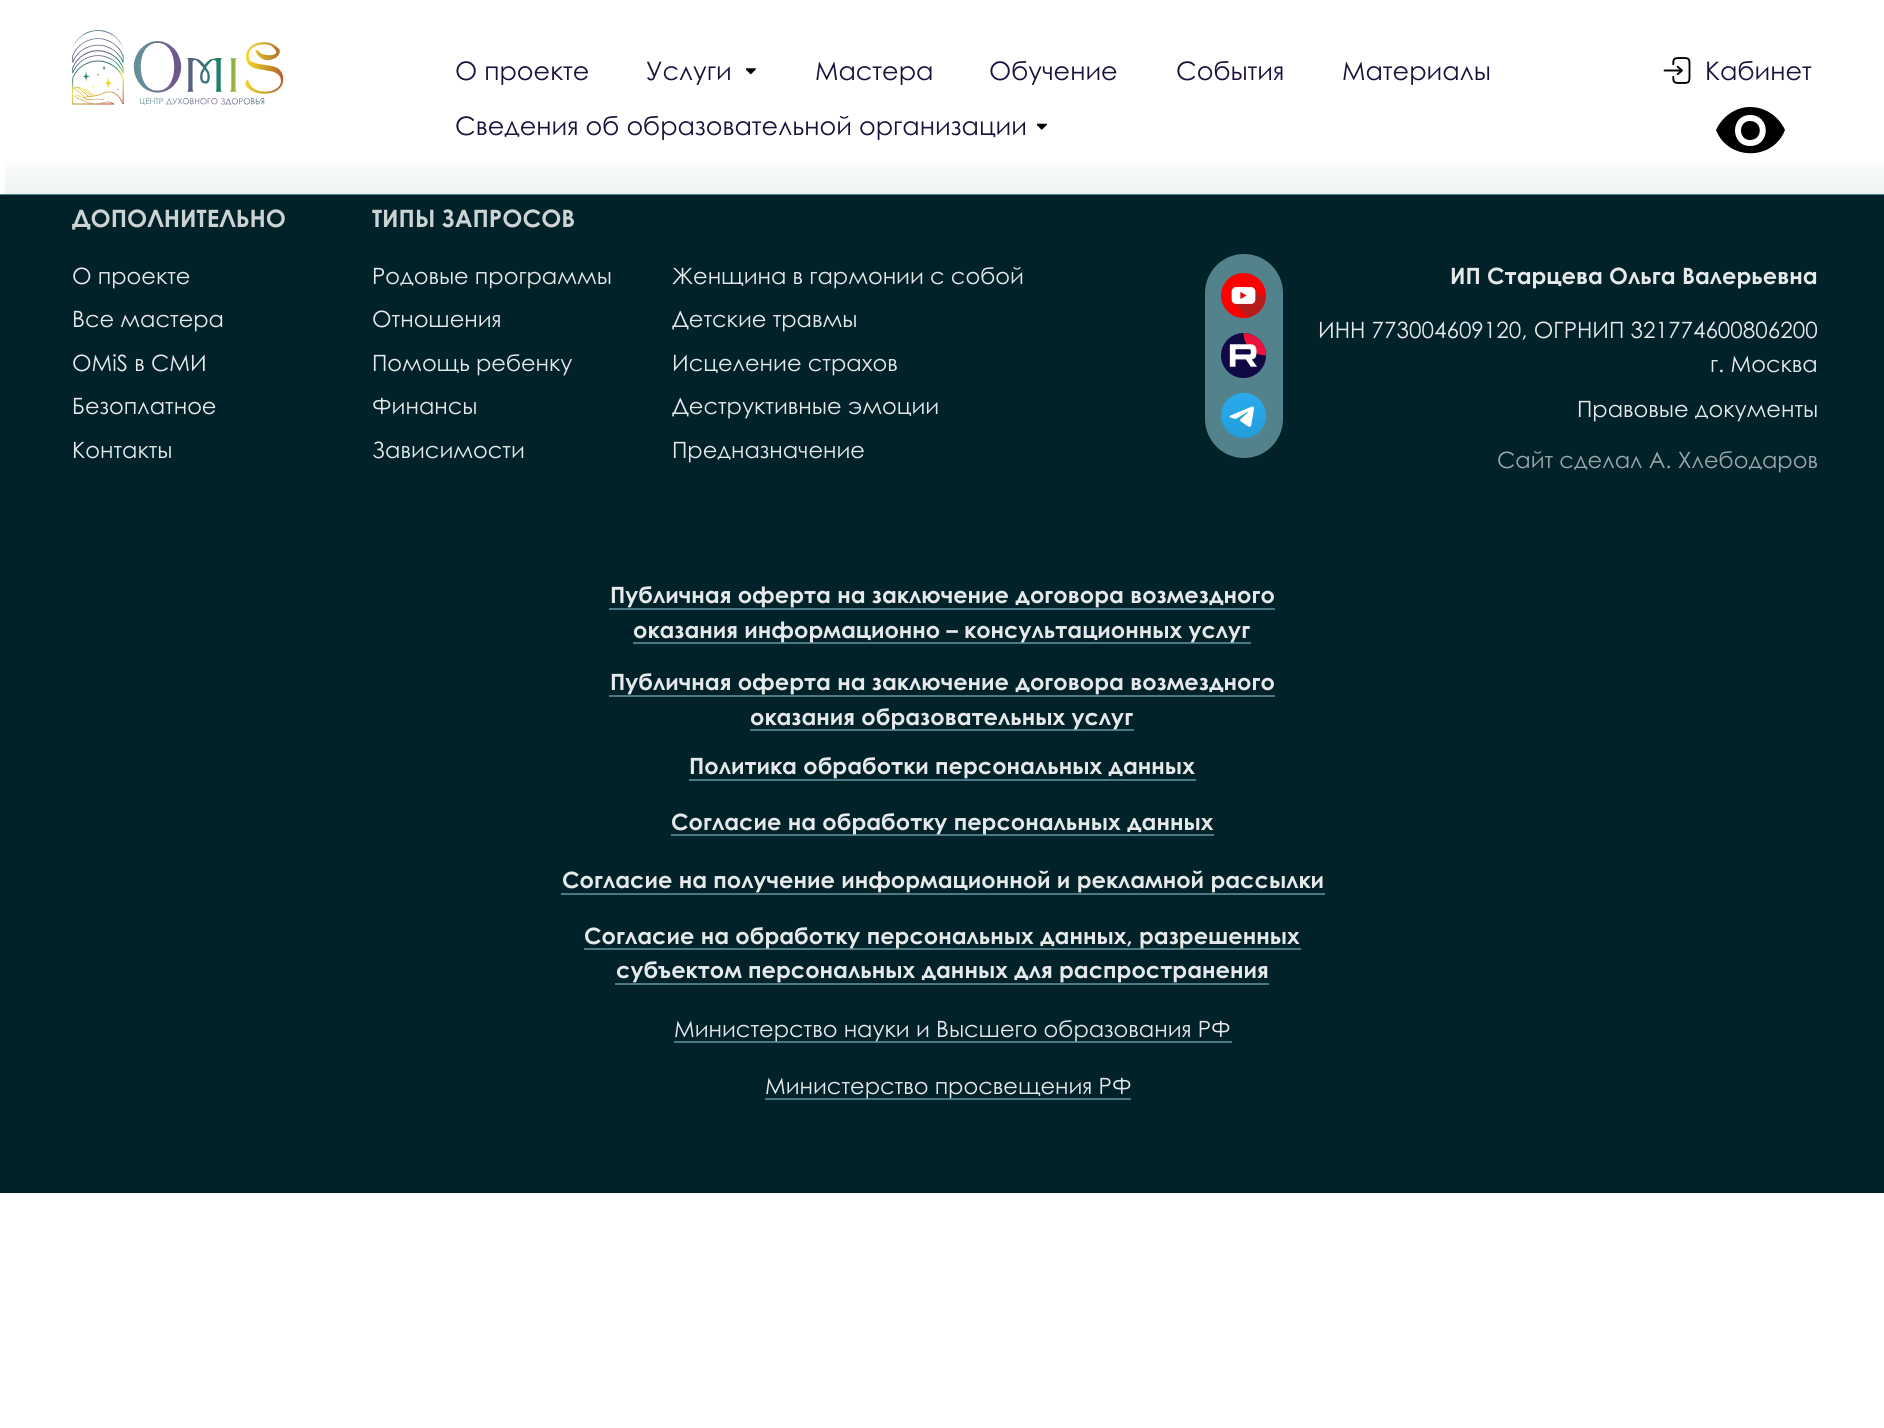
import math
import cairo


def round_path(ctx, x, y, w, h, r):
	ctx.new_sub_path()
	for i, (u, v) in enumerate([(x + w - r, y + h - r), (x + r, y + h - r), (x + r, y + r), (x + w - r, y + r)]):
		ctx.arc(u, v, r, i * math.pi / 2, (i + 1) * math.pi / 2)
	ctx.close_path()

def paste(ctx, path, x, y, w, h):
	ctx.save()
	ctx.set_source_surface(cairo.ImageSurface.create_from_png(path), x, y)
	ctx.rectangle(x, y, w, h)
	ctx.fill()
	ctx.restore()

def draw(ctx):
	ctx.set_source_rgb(1, 1, 1)
	ctx.paint()
	paste(ctx, 'media/1.png', 72, 30, 212, 75)
	ctx.select_font_face('Century Gothic')
	ctx.set_font_size(25.5)
	ctx.set_source_rgb(0.114, 0.063, 0.235)
	ctx.move_to(455, 80)
	ctx.show_text('О проекте')
	ctx.move_to(646, 80)
	ctx.show_text('Услуги')
	paste(ctx, 'media/2.png', 746, 68, 10, 7)
	for x, y, s in [
		(815, 80, 'Мастера'),
		(989, 80, 'Обучение'),
		(1176, 80, 'События'),
		(1342, 80, 'Материалы'),
	]:
		ctx.move_to(x, y)
		ctx.show_text(s)
	paste(ctx, 'media/3.png', 1663, 57, 28, 27)
	ctx.move_to(1705, 80)
	ctx.show_text('Кабинет')
	ctx.move_to(455, 135)
	ctx.show_text('Сведения об образовательной организации')
	paste(ctx, 'media/4.png', 1037, 123, 10, 7)
	ctx.set_source_rgb(0, 0, 0)
	ctx.new_path()
	ctx.move_to(1750, 107)
	ctx.curve_to(1735, 107, 1722, 117, 1716, 130)
	ctx.curve_to(1728, 161, 1773, 161, 1785, 130)
	ctx.curve_to(1779, 117, 1766, 107, 1750, 107)
	ctx.close_path()
	ctx.move_to(1750, 146)
	ctx.curve_to(1730, 146, 1730, 115, 1750, 115)
	ctx.curve_to(1771, 115, 1771, 146, 1750, 146)
	ctx.close_path()
	ctx.move_to(1750, 121)
	ctx.curve_to(1738, 121, 1738, 140, 1750, 140)
	ctx.curve_to(1763, 140, 1763, 121, 1750, 121)
	ctx.close_path()
	ctx.fill()
	gradient = cairo.LinearGradient(947, 151, 947, 197)
	gradient.add_color_stop_rgba(0, 0.31, 0.502, 0.549, 0)
	gradient.add_color_stop_rgba(0.98, 0.31, 0.502, 0.549, 0.1)
	ctx.set_source(gradient)
	ctx.rectangle(5, 161, 1879, 33)
	ctx.fill()
	ctx.set_source_rgb(0.322, 0.514, 0.553)
	ctx.rectangle(0, 194, 1884, 1)
	ctx.fill()
	ctx.set_source_rgb(0.008, 0.133, 0.161)
	ctx.rectangle(0, 195, 1884, 998)
	ctx.fill()
	ctx.select_font_face('Century Gothic', cairo.FONT_SLANT_NORMAL, cairo.FONT_WEIGHT_BOLD)
	ctx.set_font_size(24)
	ctx.set_source_rgb(0.8, 0.827, 0.831)
	ctx.move_to(72, 227)
	ctx.show_text('ДОПОЛНИТЕЛЬНО')
	ctx.move_to(372, 227)
	ctx.show_text('ТИПЫ ЗАПРОСОВ')
	ctx.select_font_face('Century Gothic')
	ctx.set_font_size(22.5)
	ctx.set_source_rgb(0.902, 0.914, 0.918)
	for x, y, s in [
		(72, 284, 'О проекте'),
		(372, 284, 'Родовые программы'),
		(672, 284, 'Женщина в гармонии с собой'),
	]:
		ctx.move_to(x, y)
		ctx.show_text(s)
	ctx.set_source_rgb(0.322, 0.514, 0.553)
	round_path(ctx, 1205, 254, 78, 204, 39)
	ctx.fill()
	ctx.select_font_face('Century Gothic', cairo.FONT_SLANT_NORMAL, cairo.FONT_WEIGHT_BOLD)
	ctx.set_source_rgb(0.902, 0.914, 0.918)
	ctx.move_to(1450, 284)
	ctx.show_text('ИП Старцева Ольга Валерьевна')
	paste(ctx, 'media/5.png', 1221, 273, 45, 45)
	ctx.select_font_face('Century Gothic')
	for x, y, s in [
		(72, 327, 'Все мастера'),
		(372, 327, 'Отношения'),
		(672, 327, 'Детские травмы'),
	]:
		ctx.move_to(x, y)
		ctx.show_text(s)
	paste(ctx, 'media/6.png', 1221, 333, 45, 45)
	for x, y, s in [
		(1318, 338, 'ИНН 773004609120, ОГРНИП 321774600806200'),
		(1710, 372, 'г. Москва'),
		(72, 371, 'OMiS в СМИ'),
		(372, 371, 'Помощь ребенку'),
		(672, 371, 'Исцеление страхов'),
		(72, 414, 'Безоплатное'),
		(372, 414, 'Финансы'),
		(672, 414, 'Деструктивные эмоции'),
	]:
		ctx.move_to(x, y)
		ctx.show_text(s)
	paste(ctx, 'media/7.png', 1221, 393, 45, 45)
	for x, y, s in [
		(1577, 417, 'Правовые документы'),
		(72, 458, 'Контакты'),
		(372, 458, 'Зависимости'),
		(672, 458, 'Предназначение'),
	]:
		ctx.move_to(x, y)
		ctx.show_text(s)
	ctx.set_source_rgb(0.604, 0.655, 0.663)
	ctx.move_to(1497, 468)
	ctx.show_text('Сайт сделал А. Хлебодаров')
	ctx.select_font_face('Century Gothic', cairo.FONT_SLANT_NORMAL, cairo.FONT_WEIGHT_BOLD)
	ctx.set_source_rgb(0.902, 0.914, 0.918)
	ctx.move_to(610, 603)
	ctx.show_text('Публичная оферта на заключение договора возмездного')
	ctx.set_source_rgb(0.29, 0.475, 0.514)
	ctx.rectangle(609, 608, 666, 2)
	ctx.fill()
	ctx.rectangle(633, 642, 618, 2)
	ctx.fill()
	ctx.set_source_rgb(0.902, 0.914, 0.918)
	ctx.move_to(633, 638)
	ctx.show_text('оказания информационно – консультационных услуг')
	ctx.move_to(610, 690)
	ctx.show_text('Публичная оферта на заключение договора возмездного')
	ctx.set_source_rgb(0.29, 0.475, 0.514)
	ctx.rectangle(609, 695, 666, 2)
	ctx.fill()
	ctx.rectangle(750, 729, 384, 2)
	ctx.fill()
	ctx.set_source_rgb(0.902, 0.914, 0.918)
	ctx.move_to(750, 725)
	ctx.show_text('оказания образовательных услуг')
	ctx.move_to(689, 774)
	ctx.show_text('Политика обработки персональных данных')
	ctx.set_source_rgb(0.29, 0.475, 0.514)
	ctx.rectangle(689, 779, 507, 2)
	ctx.fill()
	ctx.rectangle(671, 834, 543, 2)
	ctx.fill()
	ctx.set_source_rgb(0.902, 0.914, 0.918)
	ctx.move_to(671, 830)
	ctx.show_text('Согласие на обработку персональных данных')
	ctx.move_to(562, 888)
	ctx.show_text('Согласие на получение информационной и рекламной рассылки')
	ctx.set_source_rgb(0.29, 0.475, 0.514)
	ctx.rectangle(561, 893, 764, 2)
	ctx.fill()
	ctx.rectangle(584, 948, 717, 2)
	ctx.fill()
	ctx.set_source_rgb(0.902, 0.914, 0.918)
	ctx.move_to(584, 944)
	ctx.show_text('Согласие на обработку персональных данных, разрешенных')
	ctx.move_to(616, 978)
	ctx.show_text('субъектом персональных данных для распространения')
	ctx.set_source_rgb(0.29, 0.475, 0.514)
	ctx.rectangle(615, 983, 654, 2)
	ctx.fill()
	ctx.rectangle(674, 1041, 558, 2)
	ctx.fill()
	ctx.select_font_face('Century Gothic')
	ctx.set_source_rgb(0.902, 0.914, 0.918)
	ctx.move_to(674, 1037)
	ctx.show_text('Министерство науки и Высшего образования РФ')
	ctx.set_source_rgb(0.29, 0.475, 0.514)
	ctx.rectangle(765, 1098, 366, 2)
	ctx.fill()
	ctx.set_source_rgb(0.902, 0.914, 0.918)
	ctx.move_to(765, 1094)
	ctx.show_text('Министерство просвещения РФ')


surface = cairo.ImageSurface(cairo.FORMAT_RGB24, 1884, 1428)
ctx = cairo.Context(surface)
options = cairo.FontOptions()
options.set_hint_metrics(cairo.HINT_METRICS_OFF)
options.set_hint_style(cairo.HINT_STYLE_NONE)
ctx.set_font_options(options)
ctx.set_miter_limit(4)
draw(ctx)
surface.write_to_png('image.png')
